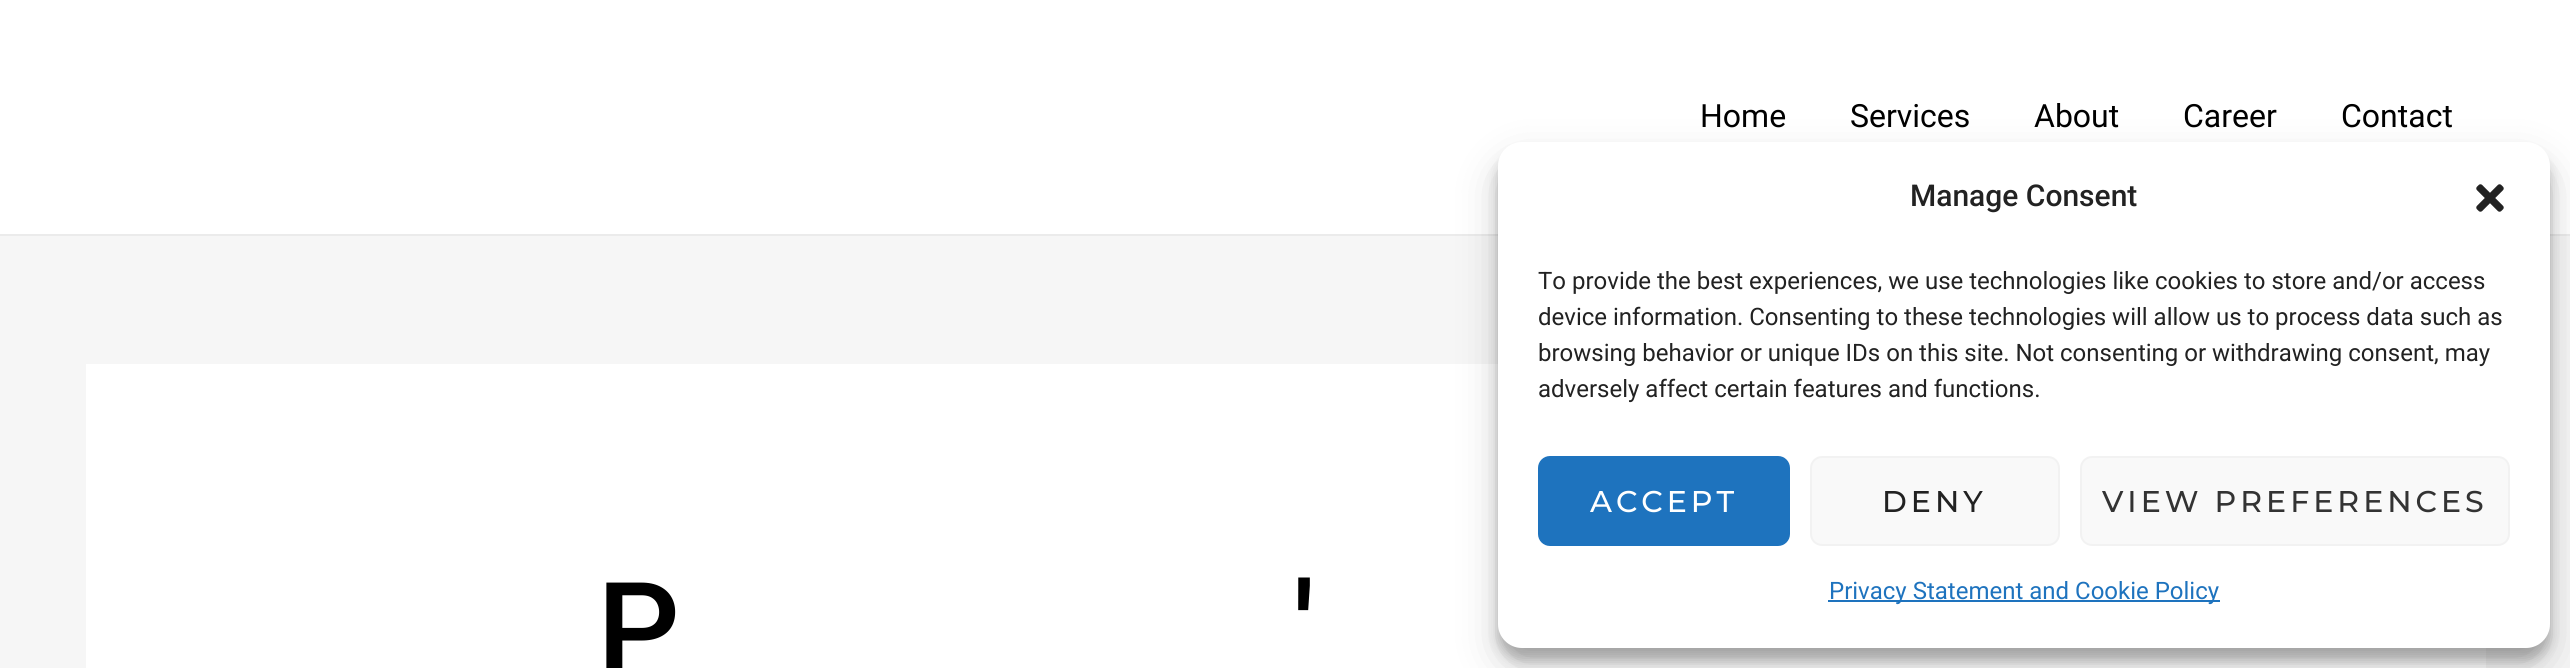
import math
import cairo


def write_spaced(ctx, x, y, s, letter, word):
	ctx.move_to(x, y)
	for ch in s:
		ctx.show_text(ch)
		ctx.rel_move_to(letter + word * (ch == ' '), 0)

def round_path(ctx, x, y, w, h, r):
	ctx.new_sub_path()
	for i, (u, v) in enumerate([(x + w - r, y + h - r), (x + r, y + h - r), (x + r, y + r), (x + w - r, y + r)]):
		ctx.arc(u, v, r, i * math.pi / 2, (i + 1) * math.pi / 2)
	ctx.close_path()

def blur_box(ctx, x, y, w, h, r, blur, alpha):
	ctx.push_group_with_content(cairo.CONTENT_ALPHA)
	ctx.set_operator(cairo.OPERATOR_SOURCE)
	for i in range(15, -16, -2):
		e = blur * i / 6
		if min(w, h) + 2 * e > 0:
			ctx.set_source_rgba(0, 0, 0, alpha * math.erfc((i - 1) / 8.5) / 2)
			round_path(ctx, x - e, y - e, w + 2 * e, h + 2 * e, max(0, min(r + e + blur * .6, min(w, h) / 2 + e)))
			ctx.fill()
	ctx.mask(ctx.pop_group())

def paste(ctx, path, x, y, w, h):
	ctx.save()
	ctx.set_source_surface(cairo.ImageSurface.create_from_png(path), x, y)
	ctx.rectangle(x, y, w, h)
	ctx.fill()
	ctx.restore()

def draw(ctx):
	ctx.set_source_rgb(0.961, 0.961, 0.961)
	ctx.paint()
	ctx.set_source_rgb(1, 1, 1)
	ctx.rectangle(0, 0, 2570, 234)
	ctx.fill()
	ctx.set_source_rgb(0.918, 0.918, 0.918)
	ctx.rectangle(0, 234, 2570, 2)
	ctx.fill()
	ctx.select_font_face('Roboto')
	ctx.set_font_size(32)
	ctx.set_source_rgb(0, 0, 0)
	for x, y, s in [
		(1700, 127, 'Home'),
		(1850, 127, 'Services'),
		(2034, 127, 'About'),
		(2183, 127, 'Career'),
		(2341, 127, 'Contact'),
	]:
		ctx.move_to(x, y)
		ctx.show_text(s)
	ctx.set_source_rgb(1, 1, 1)
	ctx.rectangle(86, 364, 2400, 304)
	ctx.fill()
	ctx.select_font_face('Roboto Medium')
	ctx.set_font_size(130)
	ctx.set_source_rgb(0, 0, 0)
	ctx.move_to(597, 675)
	ctx.show_text('P')
	ctx.move_to(1293, 675)
	ctx.show_text('\'')
	ctx.set_source_rgb(0, 0, 0)
	blur_box(ctx, 1498, 154, 1052, 506, 24, 6, 0.23)
	blur_box(ctx, 1498, 162, 1052, 506, 24, 20, 0.19)
	ctx.set_source_rgb(1, 1, 1)
	round_path(ctx, 1498, 142, 1052, 506, 24)
	ctx.fill()
	ctx.set_font_size(30)
	ctx.set_source_rgb(0.133, 0.133, 0.133)
	ctx.move_to(1910, 206)
	ctx.show_text('Manage Consent')
	paste(ctx, 'media/1.png', 2476, 184, 28, 28)
	ctx.select_font_face('Roboto')
	ctx.set_font_size(24)
	for x, y, s in [
		(1538, 289, 'To provide the best experiences, we use technologies like cookies to store and/or access'),
		(1538, 325, 'device information. Consenting to these technologies will allow us to process data such as'),
		(1538, 361, 'browsing behavior or unique IDs on this site. Not consenting or withdrawing consent, may'),
		(1538, 397, 'adversely affect certain features and functions.'),
	]:
		ctx.move_to(x, y)
		ctx.show_text(s)
	ctx.set_source_rgb(0.118, 0.451, 0.745)
	round_path(ctx, 1539, 457, 250, 88, 11)
	ctx.fill_preserve()
	ctx.stroke()
	ctx.select_font_face('Montserrat Medium')
	ctx.set_font_size(30)
	ctx.set_source_rgb(1, 1, 1)
	write_spaced(ctx, 1590, 512, 'ACCEPT', 4, 0)
	ctx.set_source_rgb(0.976, 0.976, 0.976)
	round_path(ctx, 1811, 457, 248, 88, 11)
	ctx.fill_preserve()
	ctx.set_source_rgb(0.949, 0.949, 0.949)
	ctx.stroke()
	ctx.set_source_rgb(0.133, 0.133, 0.133)
	write_spaced(ctx, 1882, 512, 'DENY', 4, 0)
	ctx.set_source_rgb(0.976, 0.976, 0.976)
	round_path(ctx, 2081, 457, 428, 88, 11)
	ctx.fill_preserve()
	ctx.set_source_rgb(0.949, 0.949, 0.949)
	ctx.stroke()
	ctx.set_source_rgb(0.2, 0.2, 0.2)
	write_spaced(ctx, 2102, 512, 'VIEW PREFERENCES', 4, 0)
	ctx.set_source_rgb(0.118, 0.451, 0.745)
	ctx.rectangle(1828, 600, 392, 2)
	ctx.fill()
	ctx.select_font_face('Roboto')
	ctx.set_font_size(24)
	ctx.move_to(1829, 599)
	ctx.show_text('Privacy Statement and Cookie Policy')


surface = cairo.ImageSurface(cairo.FORMAT_RGB24, 2570, 668)
ctx = cairo.Context(surface)
options = cairo.FontOptions()
options.set_hint_metrics(cairo.HINT_METRICS_OFF)
options.set_hint_style(cairo.HINT_STYLE_NONE)
ctx.set_font_options(options)
ctx.set_miter_limit(4)
draw(ctx)
surface.write_to_png('image.png')
